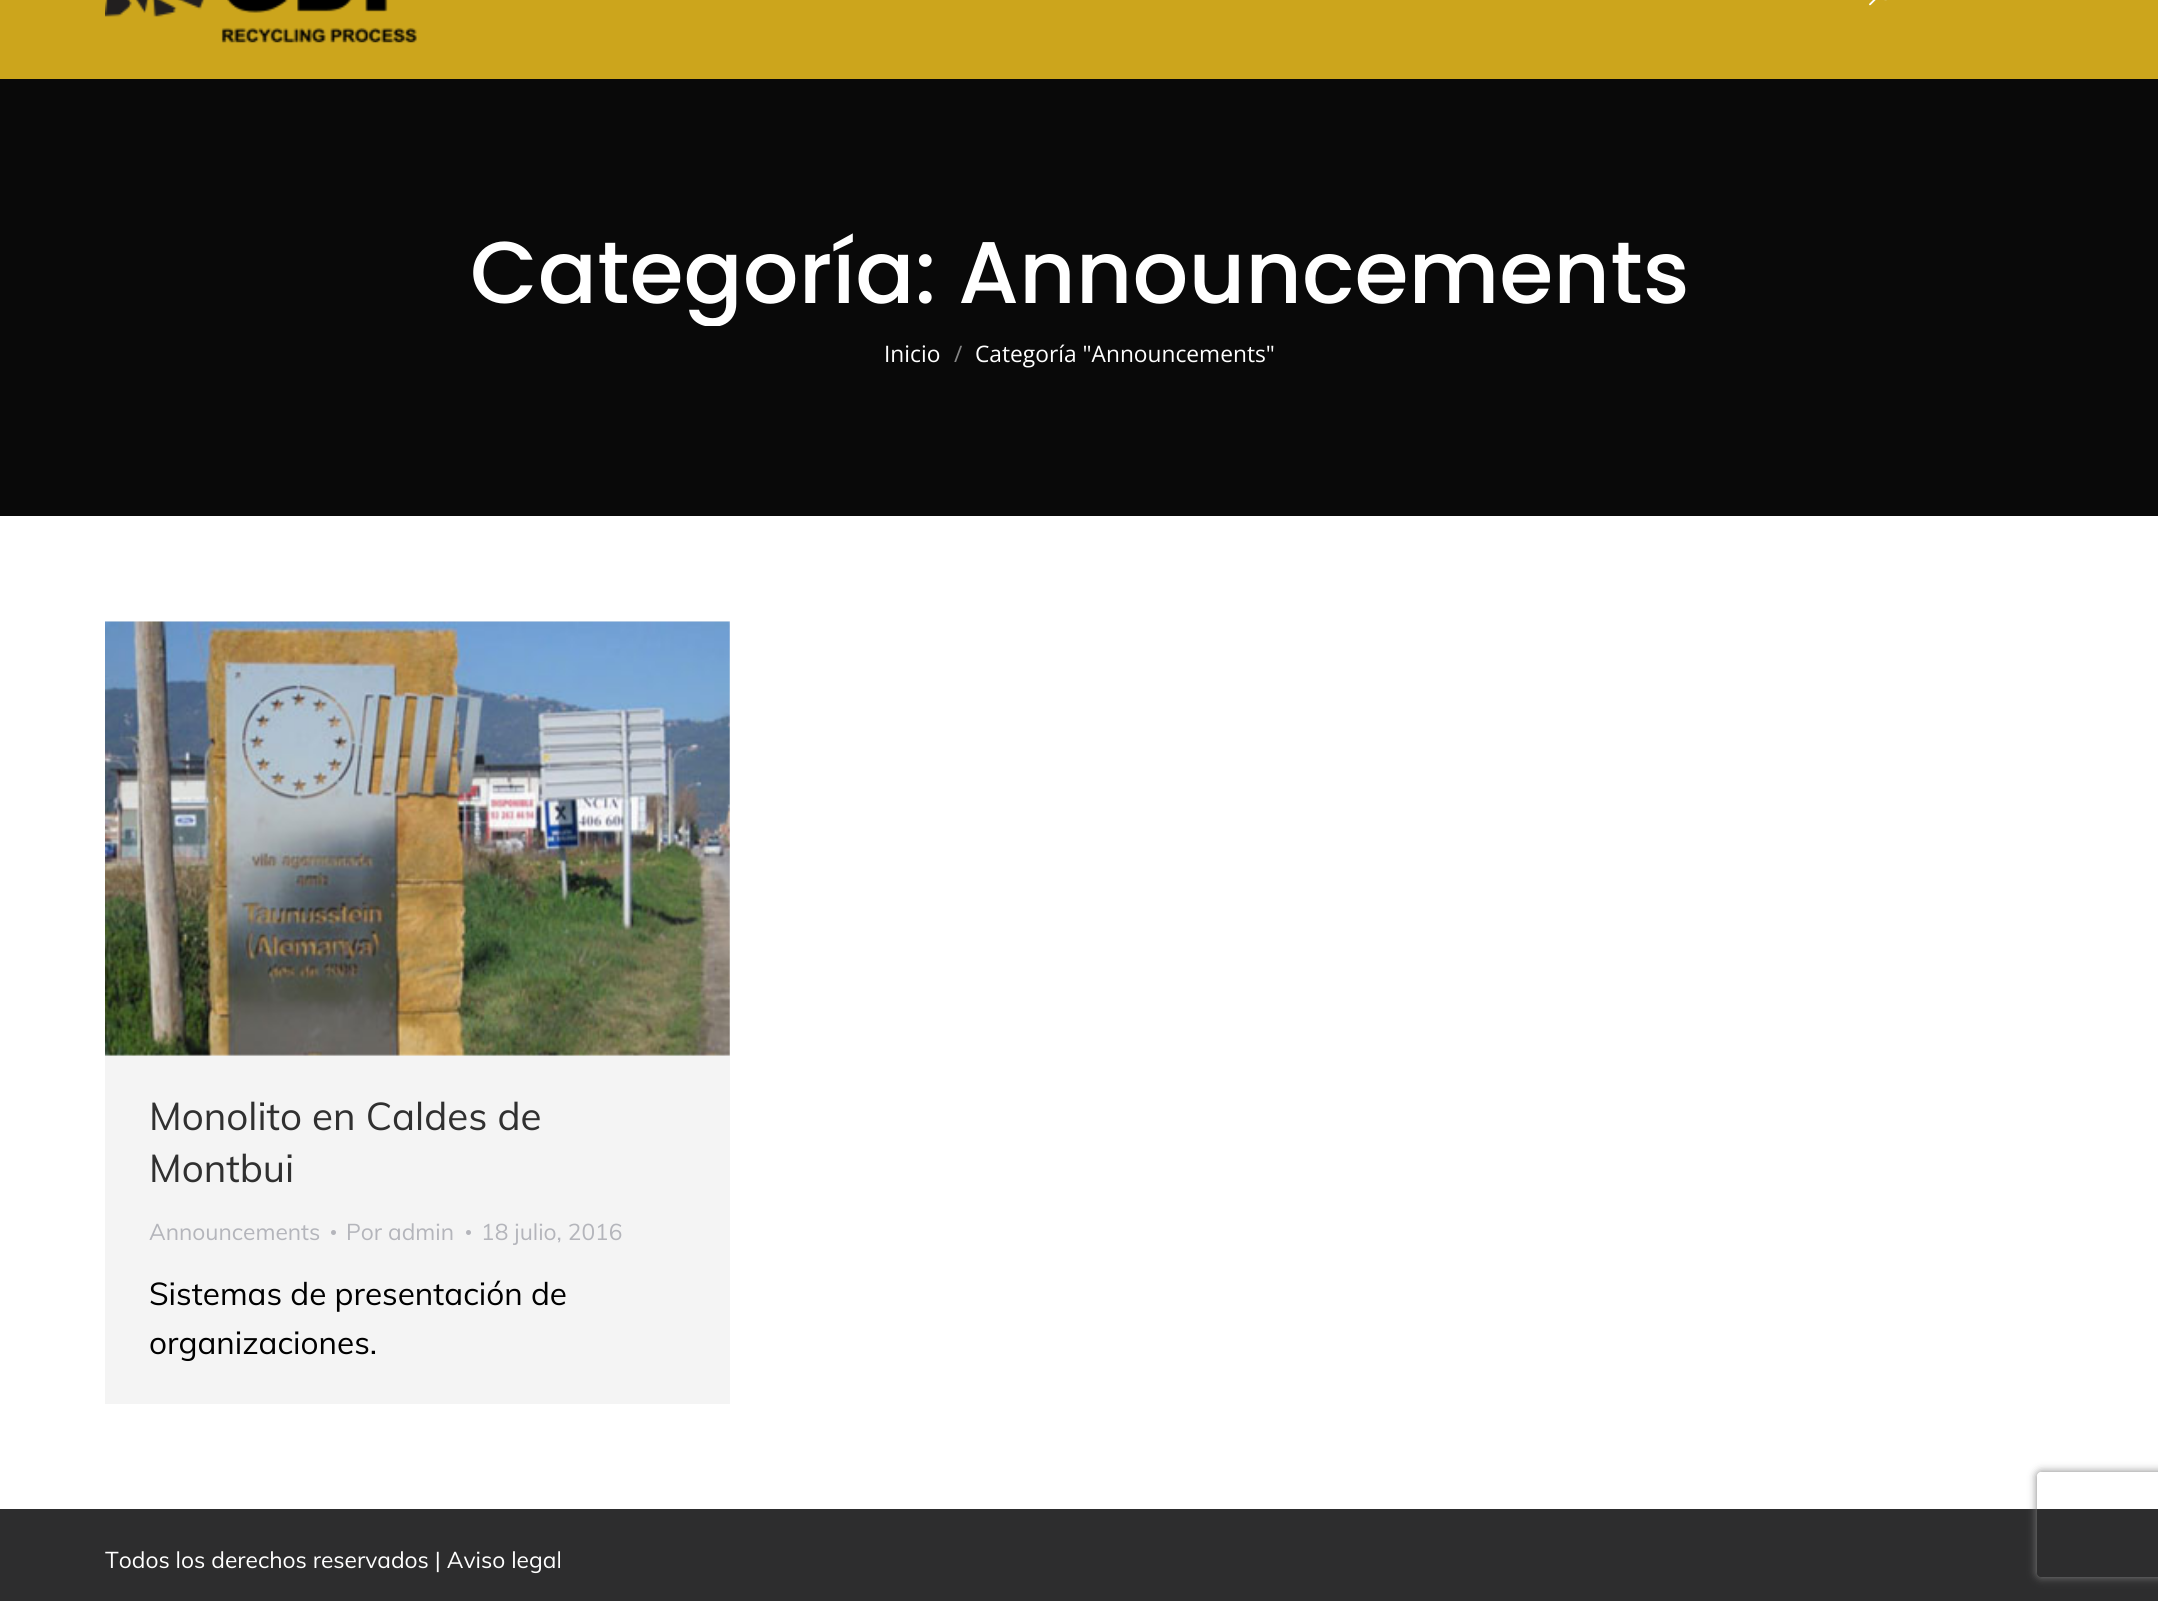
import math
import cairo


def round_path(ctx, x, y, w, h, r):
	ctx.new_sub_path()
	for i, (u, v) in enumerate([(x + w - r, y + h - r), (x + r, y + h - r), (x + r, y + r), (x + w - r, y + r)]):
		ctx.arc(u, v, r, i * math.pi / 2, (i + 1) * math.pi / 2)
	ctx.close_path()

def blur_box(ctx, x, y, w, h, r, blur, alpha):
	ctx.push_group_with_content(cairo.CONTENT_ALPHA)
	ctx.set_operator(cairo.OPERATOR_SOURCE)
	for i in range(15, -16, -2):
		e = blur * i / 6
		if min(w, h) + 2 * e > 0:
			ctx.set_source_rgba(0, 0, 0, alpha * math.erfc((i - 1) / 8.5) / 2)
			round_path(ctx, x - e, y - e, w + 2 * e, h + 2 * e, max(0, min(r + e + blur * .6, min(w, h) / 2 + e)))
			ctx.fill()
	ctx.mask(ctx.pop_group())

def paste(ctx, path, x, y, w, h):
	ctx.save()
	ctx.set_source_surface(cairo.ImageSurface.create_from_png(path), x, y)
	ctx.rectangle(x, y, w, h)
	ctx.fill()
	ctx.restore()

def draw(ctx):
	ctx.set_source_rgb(1, 1, 1)
	ctx.paint()
	ctx.set_source_rgb(0.8, 0.647, 0.11)
	ctx.rectangle(0, 0, 2158, 79)
	ctx.fill()
	paste(ctx, 'media/1.png', 105, 0, 312, 43)
	paste(ctx, 'media/2.png', 1869, 0, 18, 6)
	ctx.set_source_rgb(0.039, 0.039, 0.039)
	ctx.rectangle(0, 79, 2158, 437)
	ctx.fill()
	ctx.save()
	ctx.rectangle(469, 221, 1222, 105)
	ctx.clip()
	ctx.select_font_face('Poppins Medium')
	ctx.set_font_size(87.5)
	ctx.set_source_rgb(1, 1, 1)
	ctx.move_to(470, 303)
	ctx.show_text('Categoría:')
	ctx.restore()
	ctx.select_font_face('Poppins Medium')
	ctx.set_font_size(87.5)
	ctx.set_source_rgb(1, 1, 1)
	ctx.move_to(958, 303)
	ctx.show_text('Announcements')
	ctx.select_font_face('Open Sans')
	ctx.set_font_size(22.75)
	ctx.move_to(884, 362)
	ctx.show_text('Inicio')
	ctx.set_source_rgb(0.522, 0.522, 0.522)
	ctx.move_to(954, 362)
	ctx.show_text('/')
	ctx.set_source_rgb(1, 1, 1)
	ctx.move_to(975, 362)
	ctx.show_text('Categoría "Announcements"')
	ctx.set_source_rgb(0.957, 0.957, 0.957)
	ctx.rectangle(105, 621, 625, 783)
	ctx.fill()
	paste(ctx, 'media/3.png', 105, 621, 625, 435)
	ctx.select_font_face('Muli')
	ctx.set_font_size(38.5)
	ctx.set_source_rgb(0.188, 0.188, 0.188)
	ctx.move_to(149, 1130)
	ctx.show_text('Monolito en Caldes de')
	ctx.move_to(149, 1182)
	ctx.show_text('Montbui')
	ctx.set_font_size(22.75)
	ctx.set_source_rgb(0.706, 0.71, 0.733)
	ctx.move_to(149, 1240)
	ctx.show_text('Announcements')
	ctx.new_path()
	ctx.arc(333.5, 1232.5, 2.5, 0, 2 * math.pi)
	ctx.fill()
	ctx.move_to(346, 1240)
	ctx.show_text('Por admin')
	ctx.new_path()
	ctx.arc(468.5, 1232.5, 2.5, 0, 2 * math.pi)
	ctx.fill()
	ctx.move_to(481, 1240)
	ctx.show_text('18 julio, 2016')
	ctx.set_font_size(31.5)
	ctx.set_source_rgb(0, 0, 0)
	ctx.move_to(149, 1305)
	ctx.show_text('Sistemas de presentación de')
	ctx.move_to(149, 1354)
	ctx.show_text('organizaciones.')
	ctx.set_source_rgb(0.176, 0.176, 0.18)
	ctx.rectangle(0, 1509, 2158, 92)
	ctx.fill()
	ctx.set_font_size(22.75)
	ctx.set_source_rgb(1, 1, 1)
	ctx.move_to(105, 1568)
	ctx.show_text('Todos los derechos reservados | Aviso legal')
	ctx.save()
	ctx.set_fill_rule(cairo.FILL_RULE_EVEN_ODD)
	ctx.new_path()
	ctx.move_to(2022, 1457)
	ctx.line_to(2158, 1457)
	ctx.line_to(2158, 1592)
	ctx.line_to(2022, 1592)
	ctx.close_path()
	ctx.move_to(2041, 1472)
	ctx.line_to(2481, 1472)
	ctx.curve_to(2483, 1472, 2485, 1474, 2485, 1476)
	ctx.line_to(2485, 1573)
	ctx.curve_to(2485, 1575, 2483, 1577, 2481, 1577)
	ctx.line_to(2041, 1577)
	ctx.curve_to(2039, 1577, 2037, 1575, 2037, 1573)
	ctx.line_to(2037, 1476)
	ctx.curve_to(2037, 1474, 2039, 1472, 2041, 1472)
	ctx.close_path()
	ctx.clip()
	ctx.set_source_rgb(0.502, 0.502, 0.502)
	blur_box(ctx, 2037, 1472, 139, 105, 4, 4.5, 1)
	ctx.restore()


surface = cairo.ImageSurface(cairo.FORMAT_RGB24, 2158, 1601)
ctx = cairo.Context(surface)
options = cairo.FontOptions()
options.set_hint_metrics(cairo.HINT_METRICS_OFF)
options.set_hint_style(cairo.HINT_STYLE_NONE)
ctx.set_font_options(options)
ctx.set_miter_limit(4)
draw(ctx)
surface.write_to_png('image.png')
